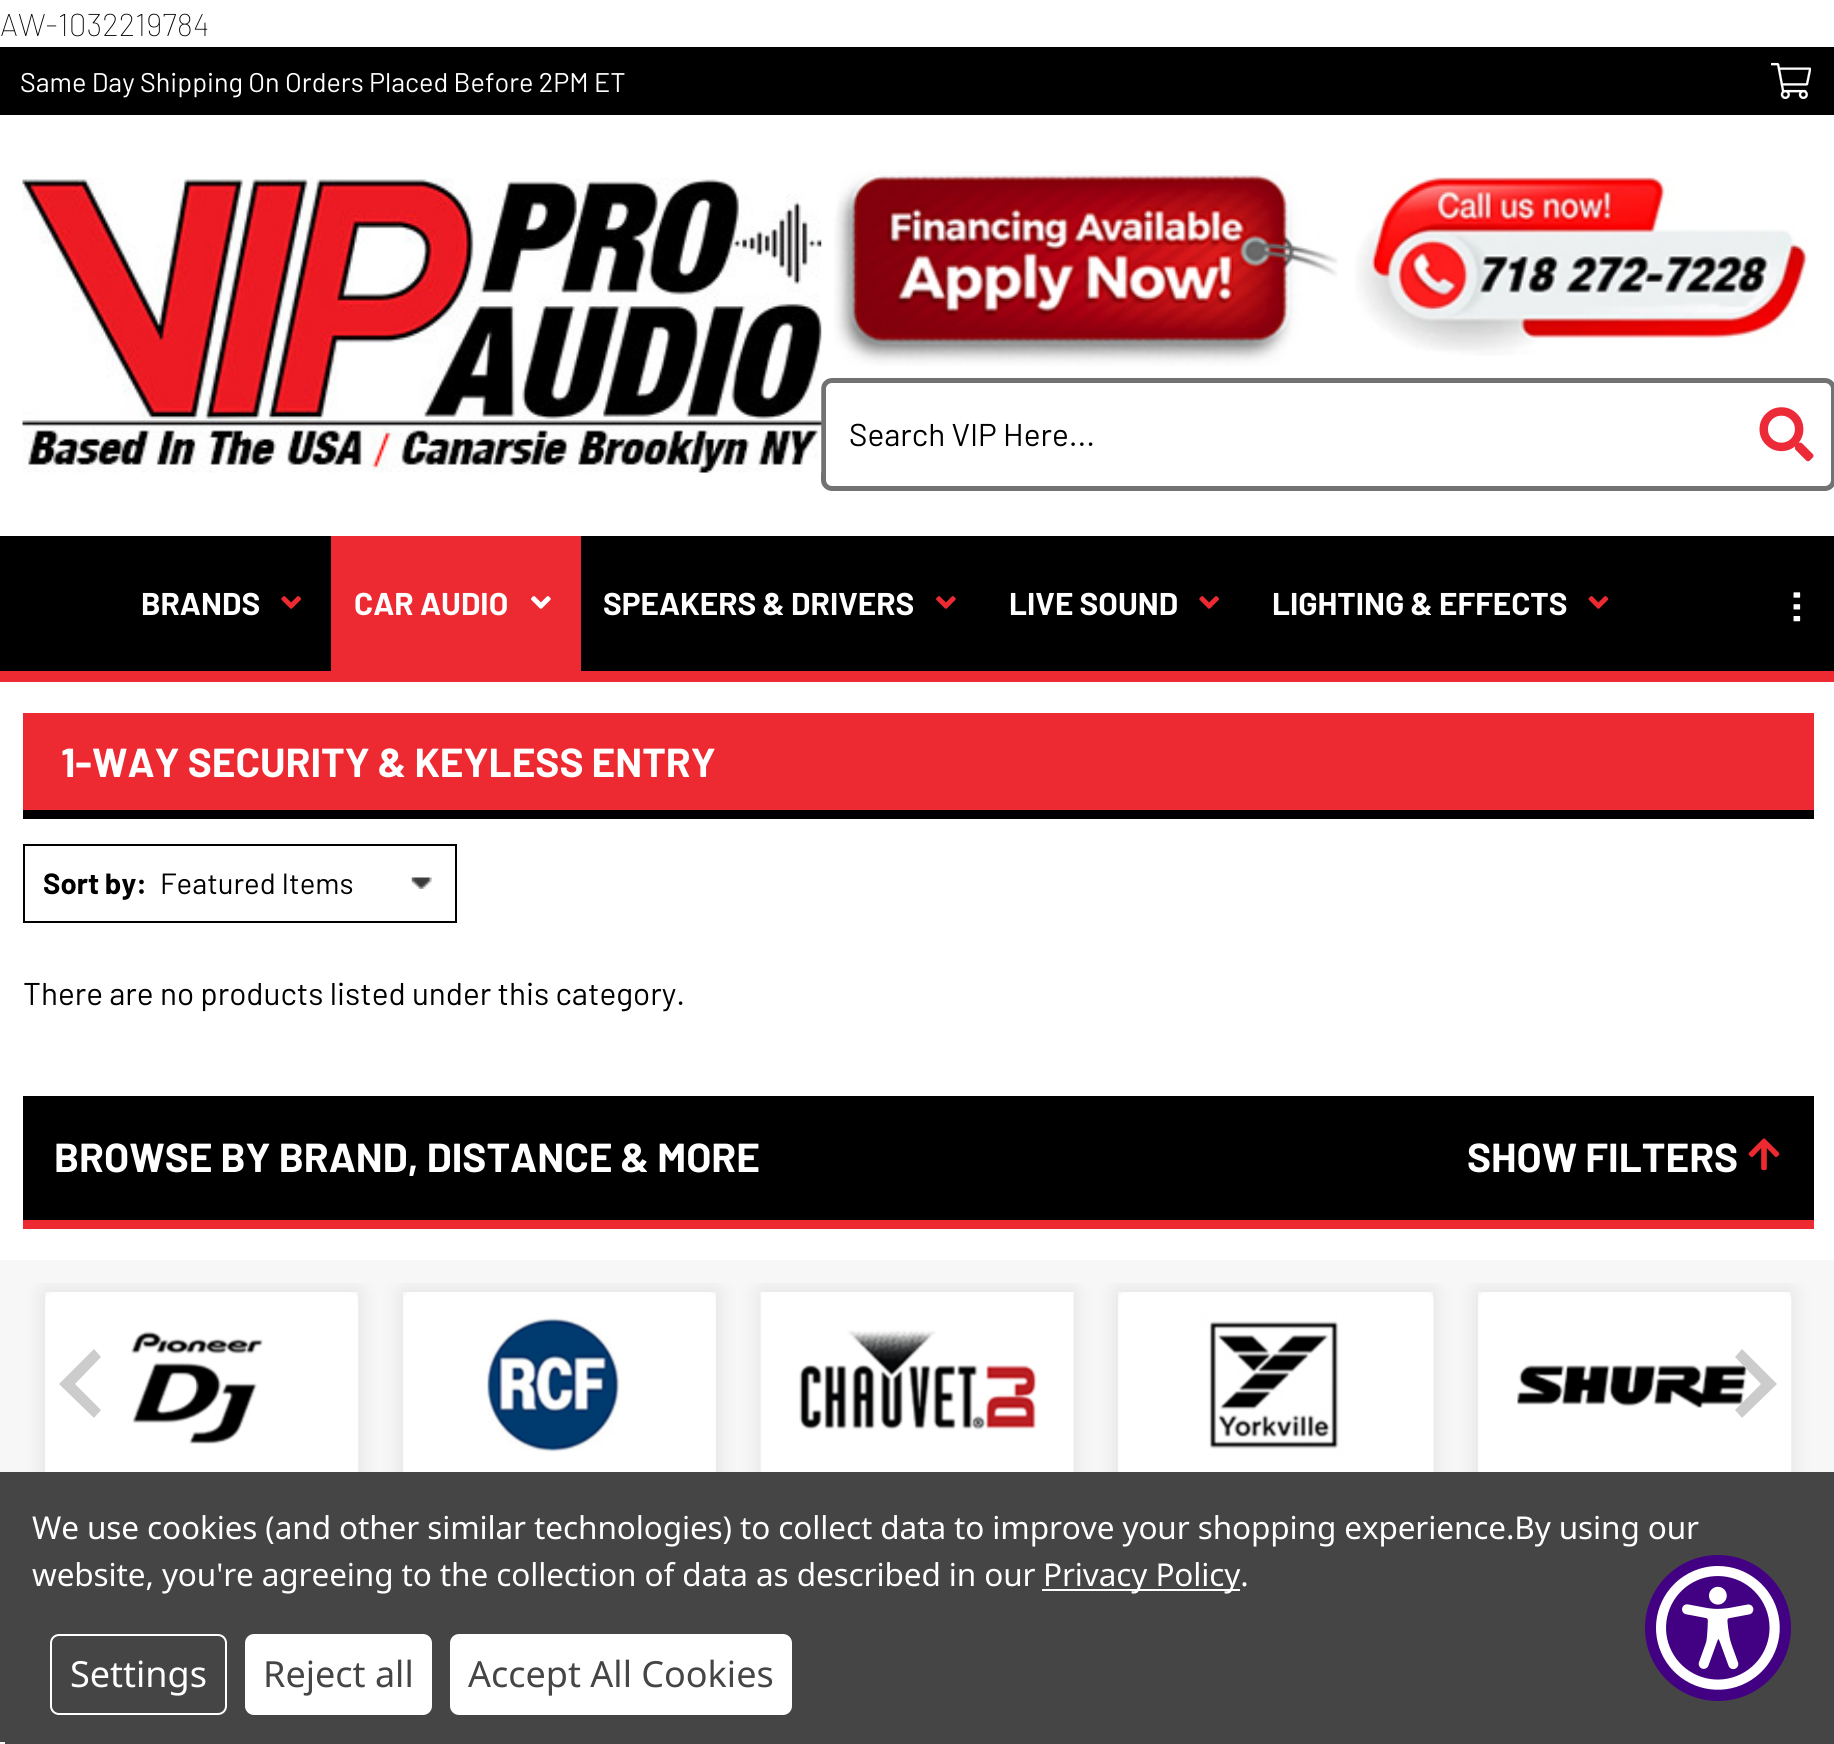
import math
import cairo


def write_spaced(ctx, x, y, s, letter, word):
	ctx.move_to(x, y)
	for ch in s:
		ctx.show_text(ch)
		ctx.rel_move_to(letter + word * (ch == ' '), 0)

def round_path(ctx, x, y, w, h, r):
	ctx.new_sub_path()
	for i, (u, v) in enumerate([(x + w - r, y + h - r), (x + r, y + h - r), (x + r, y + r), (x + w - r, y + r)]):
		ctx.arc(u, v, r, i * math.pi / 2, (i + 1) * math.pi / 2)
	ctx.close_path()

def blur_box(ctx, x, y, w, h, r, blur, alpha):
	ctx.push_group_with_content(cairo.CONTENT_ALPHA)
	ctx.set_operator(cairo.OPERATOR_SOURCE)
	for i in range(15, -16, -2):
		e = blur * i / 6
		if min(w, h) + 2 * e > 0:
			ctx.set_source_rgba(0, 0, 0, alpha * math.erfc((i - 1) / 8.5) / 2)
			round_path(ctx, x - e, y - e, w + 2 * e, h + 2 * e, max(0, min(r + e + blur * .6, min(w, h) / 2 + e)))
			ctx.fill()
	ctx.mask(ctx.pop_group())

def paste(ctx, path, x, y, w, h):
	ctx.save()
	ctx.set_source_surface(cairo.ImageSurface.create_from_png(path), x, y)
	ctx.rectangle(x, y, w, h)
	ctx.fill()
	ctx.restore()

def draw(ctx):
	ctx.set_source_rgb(1, 1, 1)
	ctx.paint()
	ctx.select_font_face('Barlow Thin')
	ctx.set_font_size(31.5)
	ctx.set_source_rgb(0, 0, 0)
	ctx.move_to(0, 36)
	ctx.show_text('AW-1032219784')
	ctx.set_source_rgb(0.929, 0.165, 0.196)
	ctx.rectangle(0, 671, 1834, 11)
	ctx.fill()
	ctx.set_source_rgb(0, 0, 0)
	ctx.rectangle(0, 47, 1834, 68)
	ctx.fill()
	ctx.select_font_face('Barlow')
	ctx.set_font_size(27)
	ctx.set_source_rgb(1, 1, 1)
	ctx.move_to(20, 92)
	ctx.show_text('Same Day Shipping On Orders Placed Before 2PM ET')
	paste(ctx, 'media/1.png', 1771, 62, 40, 38)
	round_path(ctx, 823.5, 380.5, 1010, 108, 8.5)
	ctx.set_source_rgb(0.447, 0.447, 0.447)
	ctx.set_line_width(5)
	ctx.stroke()
	paste(ctx, 'media/2.png', 22, 178, 800, 295)
	paste(ctx, 'media/3.png', 834, 170, 504, 196)
	paste(ctx, 'media/4.png', 1355, 177, 453, 179)
	ctx.set_font_size(31.5)
	ctx.set_source_rgb(0, 0, 0)
	ctx.move_to(849, 446)
	ctx.show_text('Search VIP Here...')
	paste(ctx, 'media/5.png', 1759, 407, 55, 55)
	ctx.rectangle(0, 536, 1834, 135)
	ctx.fill()
	ctx.select_font_face('Barlow', cairo.FONT_SLANT_NORMAL, cairo.FONT_WEIGHT_BOLD)
	ctx.set_source_rgb(1, 1, 1)
	ctx.move_to(141, 615)
	ctx.show_text('BRANDS')
	paste(ctx, 'media/6.png', 281, 596, 20, 13)
	ctx.set_source_rgb(0.929, 0.165, 0.196)
	ctx.rectangle(331, 536, 250, 135)
	ctx.fill()
	ctx.set_source_rgb(1, 1, 1)
	ctx.move_to(354, 615)
	ctx.show_text('CAR AUDIO')
	paste(ctx, 'media/7.png', 531, 596, 20, 13)
	ctx.move_to(603, 615)
	ctx.show_text('SPEAKERS & DRIVERS')
	paste(ctx, 'media/8.png', 936, 596, 20, 13)
	ctx.move_to(1009, 615)
	ctx.show_text('LIVE SOUND')
	paste(ctx, 'media/6.png', 1199, 596, 20, 13)
	ctx.move_to(1272, 615)
	ctx.show_text('LIGHTING & EFFECTS')
	paste(ctx, 'media/9.png', 1588, 596, 21, 13)
	paste(ctx, 'media/10.png', 1793, 592, 8, 30)
	ctx.set_source_rgb(0.929, 0.165, 0.196)
	ctx.rectangle(23, 713, 1791, 97)
	ctx.fill()
	ctx.set_source_rgb(0, 0, 0)
	ctx.rectangle(23, 810, 1791, 9)
	ctx.fill()
	ctx.set_font_size(40.5)
	ctx.set_source_rgb(1, 1, 1)
	ctx.move_to(61, 777)
	ctx.show_text('1-WAY SECURITY & KEYLESS ENTRY')
	ctx.rectangle(24, 845, 432, 77)
	ctx.set_source_rgb(0, 0, 0)
	ctx.set_line_width(2)
	ctx.stroke()
	ctx.set_font_size(29.25)
	ctx.move_to(43, 894)
	ctx.show_text('Sort by:')
	paste(ctx, 'media/11.png', 411, 877, 21, 12)
	ctx.select_font_face('Barlow')
	ctx.move_to(160, 894)
	ctx.show_text('Featured Items')
	ctx.set_font_size(31.5)
	ctx.move_to(23, 1005)
	ctx.show_text('There are no products listed under this category.')
	ctx.rectangle(23, 1096, 1791, 124)
	ctx.fill()
	ctx.set_source_rgb(0.929, 0.165, 0.196)
	ctx.rectangle(23, 1220, 1791, 9)
	ctx.fill()
	ctx.select_font_face('Barlow', cairo.FONT_SLANT_NORMAL, cairo.FONT_WEIGHT_BOLD)
	ctx.set_font_size(40.5)
	ctx.set_source_rgb(1, 1, 1)
	ctx.move_to(54, 1172)
	ctx.show_text('BROWSE BY BRAND, DISTANCE & MORE')
	ctx.move_to(1467, 1172)
	ctx.show_text('SHOW FILTERS')
	paste(ctx, 'media/12.png', 1748, 1138, 32, 32)
	ctx.set_source_rgb(0.965, 0.965, 0.965)
	ctx.rectangle(0, 1260, 1834, 212)
	ctx.fill()
	ctx.save()
	ctx.rectangle(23, 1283, 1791, 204)
	ctx.clip()
	ctx.set_fill_rule(cairo.FILL_RULE_EVEN_ODD)
	ctx.new_path()
	ctx.move_to(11, 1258)
	ctx.line_to(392, 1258)
	ctx.line_to(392, 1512)
	ctx.line_to(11, 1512)
	ctx.close_path()
	ctx.move_to(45, 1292)
	ctx.line_to(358, 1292)
	ctx.line_to(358, 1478)
	ctx.line_to(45, 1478)
	ctx.close_path()
	ctx.clip()
	ctx.set_source_rgb(0, 0, 0)
	blur_box(ctx, 45, 1292, 313, 186, 0, 11, 0.1)
	ctx.restore()
	paste(ctx, 'media/13.png', 45, 1292, 314, 180)
	ctx.save()
	ctx.rectangle(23, 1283, 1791, 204)
	ctx.clip()
	ctx.set_fill_rule(cairo.FILL_RULE_EVEN_ODD)
	ctx.new_path()
	ctx.move_to(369, 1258)
	ctx.line_to(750, 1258)
	ctx.line_to(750, 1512)
	ctx.line_to(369, 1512)
	ctx.close_path()
	ctx.move_to(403, 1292)
	ctx.line_to(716, 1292)
	ctx.line_to(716, 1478)
	ctx.line_to(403, 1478)
	ctx.close_path()
	ctx.clip()
	ctx.set_source_rgb(0, 0, 0)
	blur_box(ctx, 403, 1292, 313, 186, 0, 11, 0.1)
	ctx.restore()
	paste(ctx, 'media/14.png', 403, 1292, 313, 180)
	ctx.save()
	ctx.rectangle(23, 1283, 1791, 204)
	ctx.clip()
	ctx.set_source_rgb(0, 0, 0)
	blur_box(ctx, 761, 1292, 312, 186, 0, 11, 0.1)
	ctx.restore()
	paste(ctx, 'media/15.png', 760, 1292, 314, 180)
	ctx.save()
	ctx.rectangle(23, 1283, 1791, 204)
	ctx.clip()
	ctx.set_fill_rule(cairo.FILL_RULE_EVEN_ODD)
	ctx.new_path()
	ctx.move_to(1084, 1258)
	ctx.line_to(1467, 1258)
	ctx.line_to(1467, 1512)
	ctx.line_to(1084, 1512)
	ctx.close_path()
	ctx.move_to(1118, 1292)
	ctx.line_to(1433, 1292)
	ctx.line_to(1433, 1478)
	ctx.line_to(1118, 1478)
	ctx.close_path()
	ctx.clip()
	ctx.set_source_rgb(0, 0, 0)
	blur_box(ctx, 1118, 1292, 315, 186, 0, 11, 0.1)
	ctx.restore()
	paste(ctx, 'media/16.png', 1118, 1292, 316, 180)
	ctx.save()
	ctx.rectangle(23, 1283, 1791, 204)
	ctx.clip()
	ctx.set_fill_rule(cairo.FILL_RULE_EVEN_ODD)
	ctx.new_path()
	ctx.move_to(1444, 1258)
	ctx.line_to(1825, 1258)
	ctx.line_to(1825, 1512)
	ctx.line_to(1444, 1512)
	ctx.close_path()
	ctx.move_to(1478, 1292)
	ctx.line_to(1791, 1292)
	ctx.line_to(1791, 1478)
	ctx.line_to(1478, 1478)
	ctx.close_path()
	ctx.clip()
	ctx.set_source_rgb(0, 0, 0)
	blur_box(ctx, 1478, 1292, 313, 186, 0, 11, 0.1)
	ctx.restore()
	paste(ctx, 'media/17.png', 1478, 1292, 314, 180)
	ctx.set_source_rgb(0.8, 0.8, 0.8)
	ctx.new_path()
	ctx.move_to(94, 1349)
	ctx.line_to(101, 1357)
	ctx.line_to(75, 1384)
	ctx.line_to(101, 1410)
	ctx.line_to(94, 1418)
	ctx.line_to(59, 1384)
	ctx.close_path()
	ctx.fill()
	ctx.new_path()
	ctx.move_to(1742, 1349)
	ctx.line_to(1735, 1357)
	ctx.line_to(1761, 1384)
	ctx.line_to(1735, 1410)
	ctx.line_to(1742, 1418)
	ctx.line_to(1777, 1384)
	ctx.close_path()
	ctx.fill()
	ctx.set_source_rgb(0.271, 0.271, 0.271)
	ctx.rectangle(0, 1472, 1834, 272)
	ctx.fill()
	ctx.select_font_face('Noto Sans')
	ctx.set_font_size(31.5)
	ctx.set_source_rgb(1, 1, 1)
	write_spaced(ctx, 32, 1539, 'We use cookies (and other similar technologies) to collect data to improve your shopping experience.By using our', -0.11, 0)
	write_spaced(ctx, 32, 1586, 'website, you\'re agreeing to the collection of data as described in our', -0.11, 0)
	ctx.rectangle(1042, 1589, 198, 2)
	ctx.fill()
	write_spaced(ctx, 1043, 1586, 'Privacy Policy.', -0.11, 0)
	round_path(ctx, 51, 1635, 175, 79, 8)
	ctx.stroke()
	ctx.set_font_size(36)
	ctx.move_to(70, 1687)
	ctx.show_text('Settings')
	round_path(ctx, 245, 1634, 187, 81, 9)
	ctx.fill()
	ctx.set_source_rgb(0.271, 0.271, 0.271)
	ctx.move_to(263, 1687)
	ctx.show_text('Reject all')
	ctx.set_source_rgb(1, 1, 1)
	round_path(ctx, 450, 1634, 342, 81, 9)
	ctx.fill()
	ctx.set_source_rgb(0.271, 0.271, 0.271)
	ctx.move_to(468, 1687)
	ctx.show_text('Accept All Cookies')
	ctx.set_source_rgb(0.259, 0, 0.514)
	ctx.new_path()
	ctx.arc(1718, 1628, 73, 0, 2 * math.pi)
	ctx.fill()
	paste(ctx, 'media/18.png', 1656, 1566, 124, 124)
	ctx.set_source_rgb(0.961, 0.961, 0.961)
	ctx.rectangle(0, 1742, 5, 2)
	ctx.fill()


surface = cairo.ImageSurface(cairo.FORMAT_RGB24, 1834, 1744)
ctx = cairo.Context(surface)
options = cairo.FontOptions()
options.set_hint_metrics(cairo.HINT_METRICS_OFF)
options.set_hint_style(cairo.HINT_STYLE_NONE)
ctx.set_font_options(options)
ctx.set_miter_limit(4)
draw(ctx)
surface.write_to_png('image.png')
